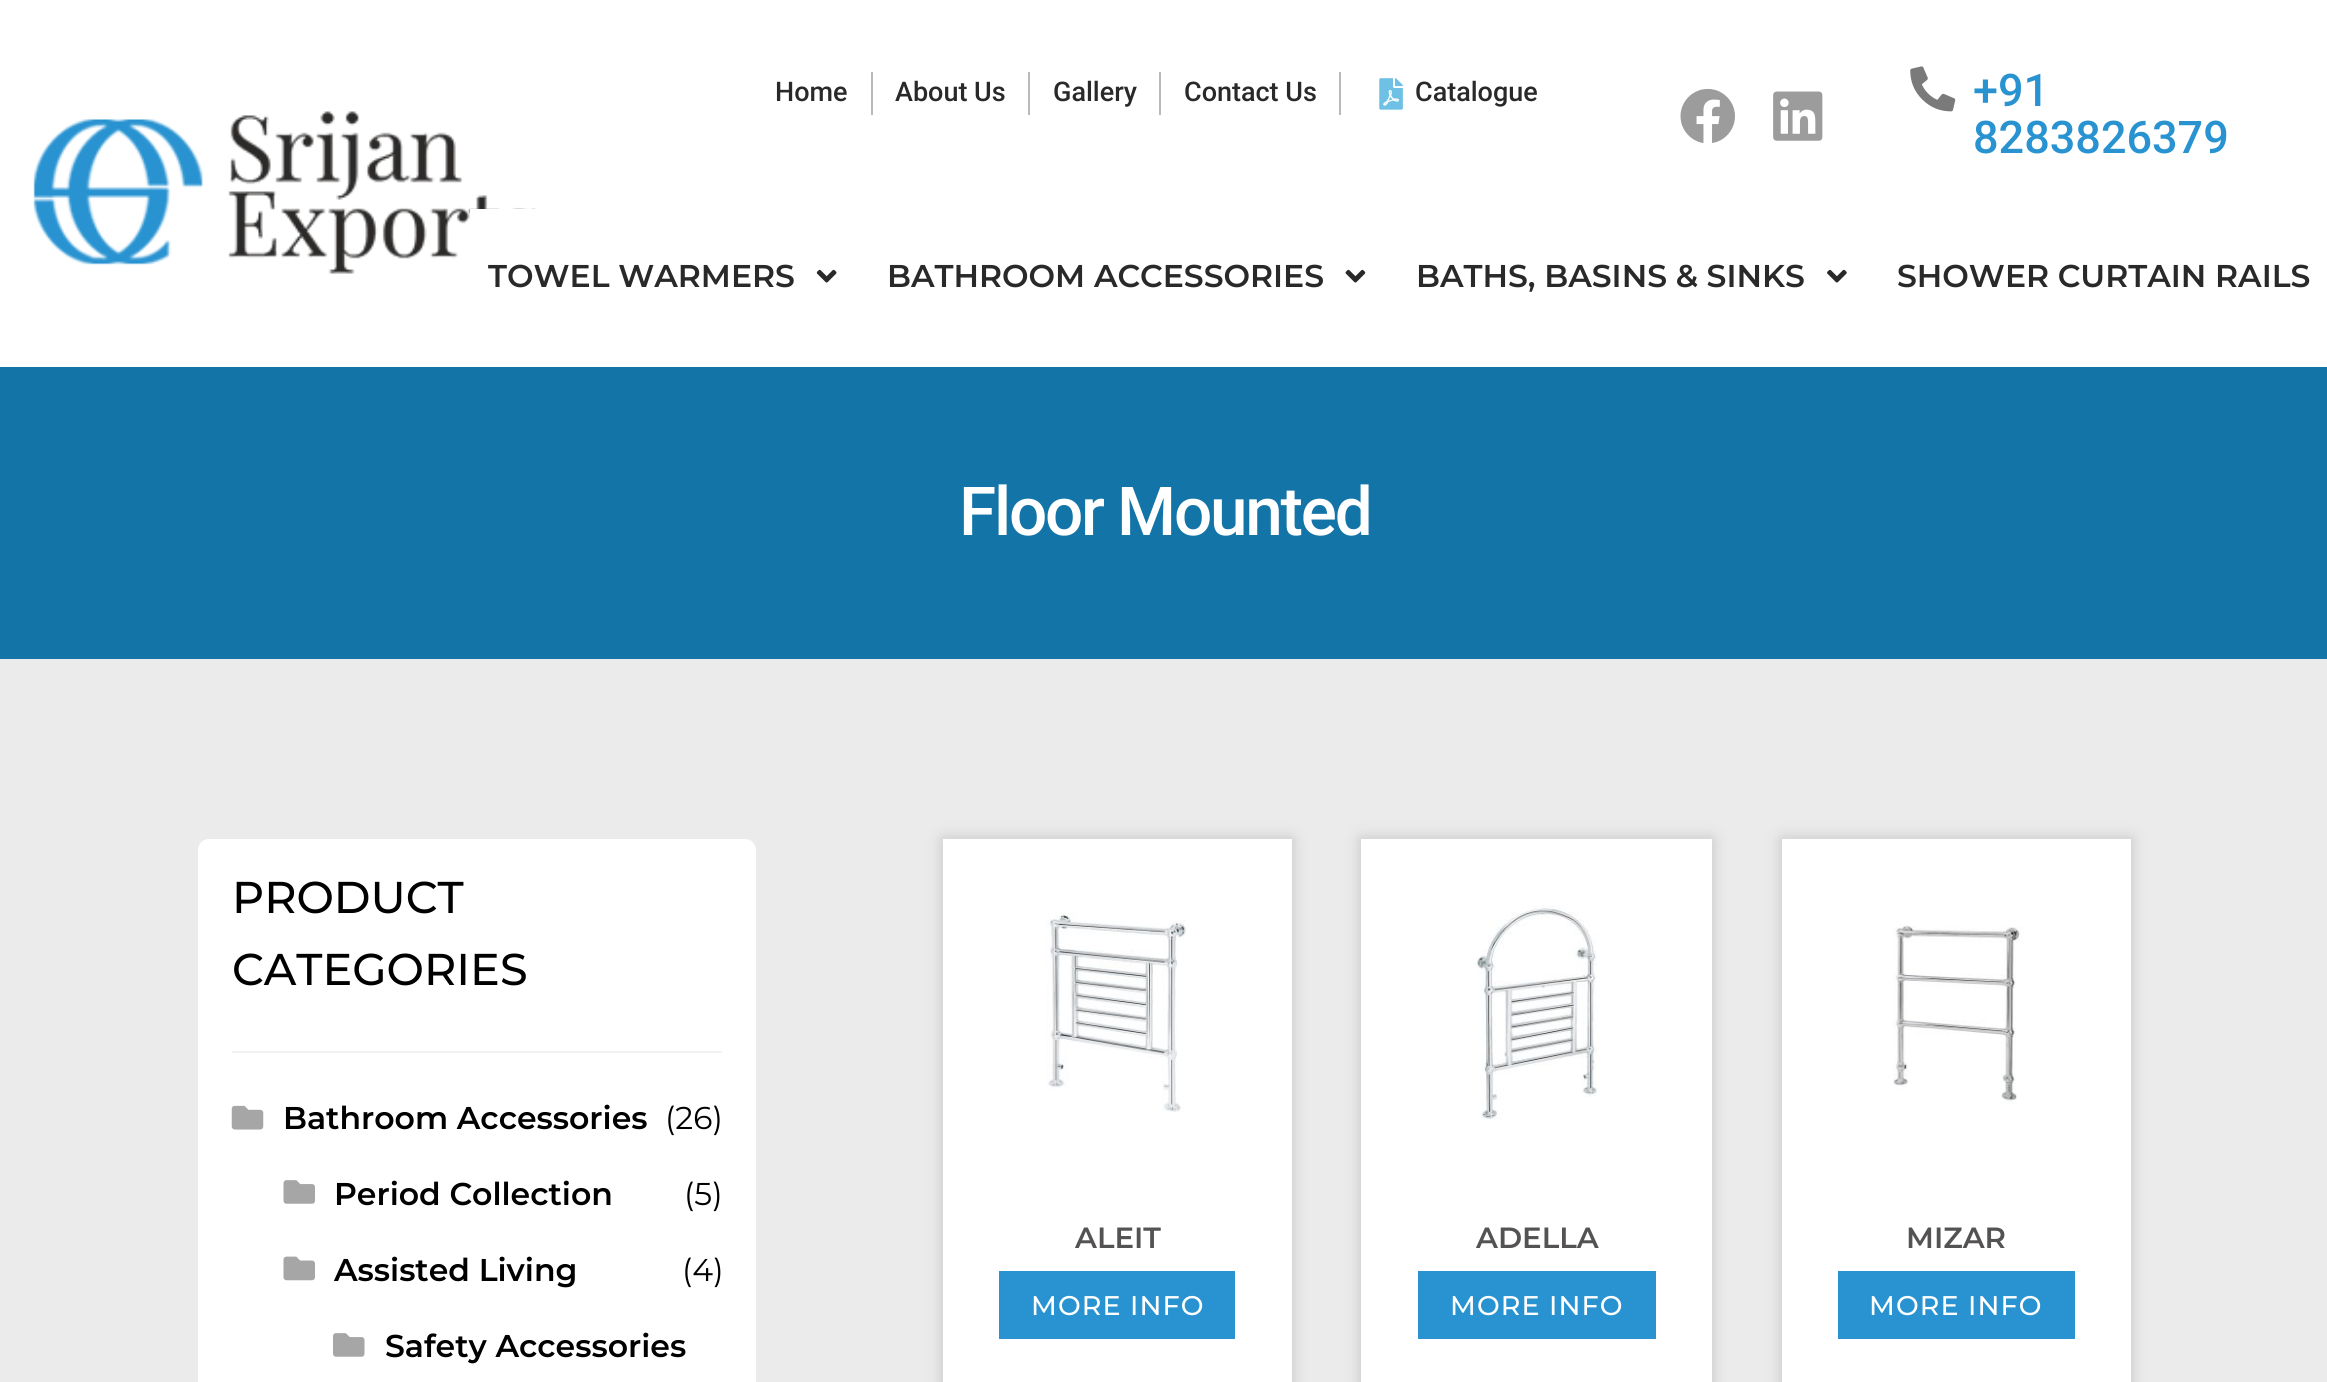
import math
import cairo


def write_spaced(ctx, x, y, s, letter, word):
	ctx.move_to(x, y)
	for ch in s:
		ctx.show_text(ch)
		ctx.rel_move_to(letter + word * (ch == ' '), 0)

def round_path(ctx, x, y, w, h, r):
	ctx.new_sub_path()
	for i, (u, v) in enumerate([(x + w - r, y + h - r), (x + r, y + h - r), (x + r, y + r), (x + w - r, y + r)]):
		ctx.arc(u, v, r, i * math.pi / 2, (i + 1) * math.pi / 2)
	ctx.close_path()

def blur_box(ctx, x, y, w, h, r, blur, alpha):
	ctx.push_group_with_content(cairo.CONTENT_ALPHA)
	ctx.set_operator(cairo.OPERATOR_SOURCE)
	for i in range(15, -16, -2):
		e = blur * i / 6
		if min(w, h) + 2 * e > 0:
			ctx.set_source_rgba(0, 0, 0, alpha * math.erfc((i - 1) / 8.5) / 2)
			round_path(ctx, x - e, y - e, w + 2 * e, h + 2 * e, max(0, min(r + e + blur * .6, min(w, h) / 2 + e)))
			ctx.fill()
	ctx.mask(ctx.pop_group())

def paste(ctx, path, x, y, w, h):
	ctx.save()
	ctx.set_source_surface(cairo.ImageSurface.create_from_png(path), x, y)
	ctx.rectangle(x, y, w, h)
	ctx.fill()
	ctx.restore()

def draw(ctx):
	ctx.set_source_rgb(0.918, 0.918, 0.918)
	ctx.paint()
	ctx.set_source_rgb(1, 1, 1)
	ctx.rectangle(0, 0, 2327, 367)
	ctx.fill()
	paste(ctx, 'media/1.png', 33, 111, 503, 163)
	ctx.select_font_face('Roboto Medium')
	ctx.set_font_size(27)
	ctx.set_source_rgb(0.161, 0.161, 0.161)
	ctx.move_to(775, 101)
	ctx.show_text('Home')
	ctx.set_source_rgb(0.725, 0.725, 0.725)
	ctx.rectangle(871, 72, 2, 43)
	ctx.fill()
	ctx.set_source_rgb(0.161, 0.161, 0.161)
	ctx.move_to(895, 101)
	ctx.show_text('About Us')
	ctx.set_source_rgb(0.725, 0.725, 0.725)
	ctx.rectangle(1028, 72, 2, 43)
	ctx.fill()
	ctx.set_source_rgb(0.161, 0.161, 0.161)
	ctx.move_to(1053, 101)
	ctx.show_text('Gallery')
	ctx.set_source_rgb(0.725, 0.725, 0.725)
	ctx.rectangle(1159, 72, 2, 43)
	ctx.fill()
	ctx.set_source_rgb(0.161, 0.161, 0.161)
	ctx.move_to(1184, 101)
	ctx.show_text('Contact Us')
	ctx.set_source_rgb(0.725, 0.725, 0.725)
	ctx.rectangle(1339, 72, 2, 43)
	ctx.fill()
	paste(ctx, 'media/2.png', 1379, 78, 24, 32)
	ctx.set_source_rgb(0.161, 0.161, 0.161)
	ctx.move_to(1415, 101)
	ctx.show_text('Catalogue')
	paste(ctx, 'media/3.png', 1680, 88, 55, 55)
	paste(ctx, 'media/4.png', 1773, 91, 50, 50)
	paste(ctx, 'media/5.png', 1910, 66, 46, 46)
	ctx.set_font_size(45)
	ctx.set_source_rgb(0.161, 0.576, 0.82)
	ctx.move_to(1973, 106)
	ctx.show_text('+91')
	ctx.move_to(1973, 153)
	ctx.show_text('8283826379')
	ctx.set_source_rgb(1, 1, 1)
	ctx.rectangle(470, 209, 66, 50)
	ctx.fill()
	ctx.select_font_face('Montserrat SemiBold')
	ctx.set_font_size(31.5)
	ctx.set_source_rgb(0.161, 0.161, 0.161)
	ctx.move_to(488, 287)
	ctx.show_text('TOWEL WARMERS')
	paste(ctx, 'media/6.png', 816, 269, 21, 14)
	ctx.move_to(887, 287)
	ctx.show_text('BATHROOM ACCESSORIES')
	paste(ctx, 'media/7.png', 1345, 269, 21, 14)
	ctx.move_to(1416, 287)
	ctx.show_text('BATHS, BASINS & SINKS')
	paste(ctx, 'media/8.png', 1827, 269, 20, 14)
	ctx.move_to(1897, 287)
	ctx.show_text('SHOWER CURTAIN RAILS')
	ctx.set_source_rgb(0.078, 0.455, 0.655)
	ctx.rectangle(0, 367, 2327, 292)
	ctx.fill()
	ctx.select_font_face('Roboto Medium')
	ctx.set_font_size(67.5)
	ctx.set_source_rgb(1, 1, 1)
	write_spaced(ctx, 959, 535, 'Floor Mounted', -2.25, 0)
	round_path(ctx, 198, 839, 558, 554, 11)
	ctx.fill()
	ctx.set_source_rgb(0.949, 0.949, 0.949)
	ctx.rectangle(232, 1051, 490, 2)
	ctx.fill()
	ctx.select_font_face('Montserrat Medium')
	ctx.set_font_size(44.5)
	ctx.set_source_rgb(0, 0, 0)
	ctx.move_to(232, 913)
	ctx.show_text('PRODUCT')
	ctx.move_to(232, 985)
	ctx.show_text('CATEGORIES')
	paste(ctx, 'media/9.png', 231, 1105, 33, 25)
	ctx.select_font_face('Montserrat SemiBold')
	ctx.set_font_size(31.5)
	ctx.move_to(283, 1129)
	ctx.show_text('Bathroom Accessories')
	ctx.select_font_face('Montserrat')
	ctx.move_to(665, 1129)
	ctx.show_text('(26)')
	paste(ctx, 'media/10.png', 283, 1180, 32, 24)
	ctx.select_font_face('Montserrat SemiBold')
	ctx.move_to(334, 1205)
	ctx.show_text('Period Collection')
	ctx.select_font_face('Montserrat')
	ctx.move_to(684, 1205)
	ctx.show_text('(5)')
	paste(ctx, 'media/11.png', 283, 1256, 32, 25)
	ctx.select_font_face('Montserrat SemiBold')
	ctx.move_to(334, 1281)
	ctx.show_text('Assisted Living')
	ctx.select_font_face('Montserrat')
	ctx.move_to(682, 1281)
	ctx.show_text('(4)')
	paste(ctx, 'media/12.png', 333, 1333, 32, 24)
	ctx.select_font_face('Montserrat SemiBold')
	ctx.move_to(385, 1357)
	ctx.show_text('Safety Accessories')
	ctx.set_source_rgb(0, 0, 0)
	blur_box(ctx, 943, 839, 349, 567, 0, 8, 0.17)
	ctx.set_source_rgb(1, 1, 1)
	ctx.rectangle(943, 839, 349, 543)
	ctx.fill()
	paste(ctx, 'media/13.png', 1046, 911, 142, 201)
	ctx.set_font_size(29.25)
	ctx.set_source_rgb(0.329, 0.322, 0.322)
	ctx.move_to(1075, 1248)
	ctx.show_text('ALEIT')
	ctx.set_source_rgb(0.161, 0.576, 0.82)
	ctx.rectangle(999, 1271, 236, 68)
	ctx.fill()
	ctx.select_font_face('Montserrat Medium')
	ctx.set_font_size(27)
	ctx.set_source_rgb(1, 1, 1)
	write_spaced(ctx, 1031, 1315, 'MORE INFO', 1.1, 0)
	ctx.set_source_rgb(0, 0, 0)
	blur_box(ctx, 1361, 839, 351, 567, 0, 8, 0.17)
	ctx.set_source_rgb(1, 1, 1)
	ctx.rectangle(1361, 839, 351, 543)
	ctx.fill()
	paste(ctx, 'media/14.png', 1476, 905, 121, 215)
	ctx.select_font_face('Montserrat SemiBold')
	ctx.set_font_size(29.25)
	ctx.set_source_rgb(0.329, 0.322, 0.322)
	ctx.move_to(1476, 1248)
	ctx.show_text('ADELLA')
	ctx.set_source_rgb(0.161, 0.576, 0.82)
	ctx.rectangle(1418, 1271, 238, 68)
	ctx.fill()
	ctx.select_font_face('Montserrat Medium')
	ctx.set_font_size(27)
	ctx.set_source_rgb(1, 1, 1)
	write_spaced(ctx, 1450, 1315, 'MORE INFO', 1.1, 0)
	ctx.set_source_rgb(0, 0, 0)
	blur_box(ctx, 1782, 839, 349, 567, 0, 8, 0.17)
	ctx.set_source_rgb(1, 1, 1)
	ctx.rectangle(1782, 839, 349, 543)
	ctx.fill()
	paste(ctx, 'media/15.png', 1893, 925, 131, 179)
	ctx.select_font_face('Montserrat SemiBold')
	ctx.set_font_size(29.25)
	ctx.set_source_rgb(0.329, 0.322, 0.322)
	ctx.move_to(1906, 1248)
	ctx.show_text('MIZAR')
	ctx.set_source_rgb(0.161, 0.576, 0.82)
	ctx.rectangle(1838, 1271, 237, 68)
	ctx.fill()
	ctx.select_font_face('Montserrat Medium')
	ctx.set_font_size(27)
	ctx.set_source_rgb(1, 1, 1)
	write_spaced(ctx, 1869, 1315, 'MORE INFO', 1.1, 0)


surface = cairo.ImageSurface(cairo.FORMAT_RGB24, 2327, 1382)
ctx = cairo.Context(surface)
options = cairo.FontOptions()
options.set_hint_metrics(cairo.HINT_METRICS_OFF)
options.set_hint_style(cairo.HINT_STYLE_NONE)
ctx.set_font_options(options)
ctx.set_miter_limit(4)
draw(ctx)
surface.write_to_png('image.png')
